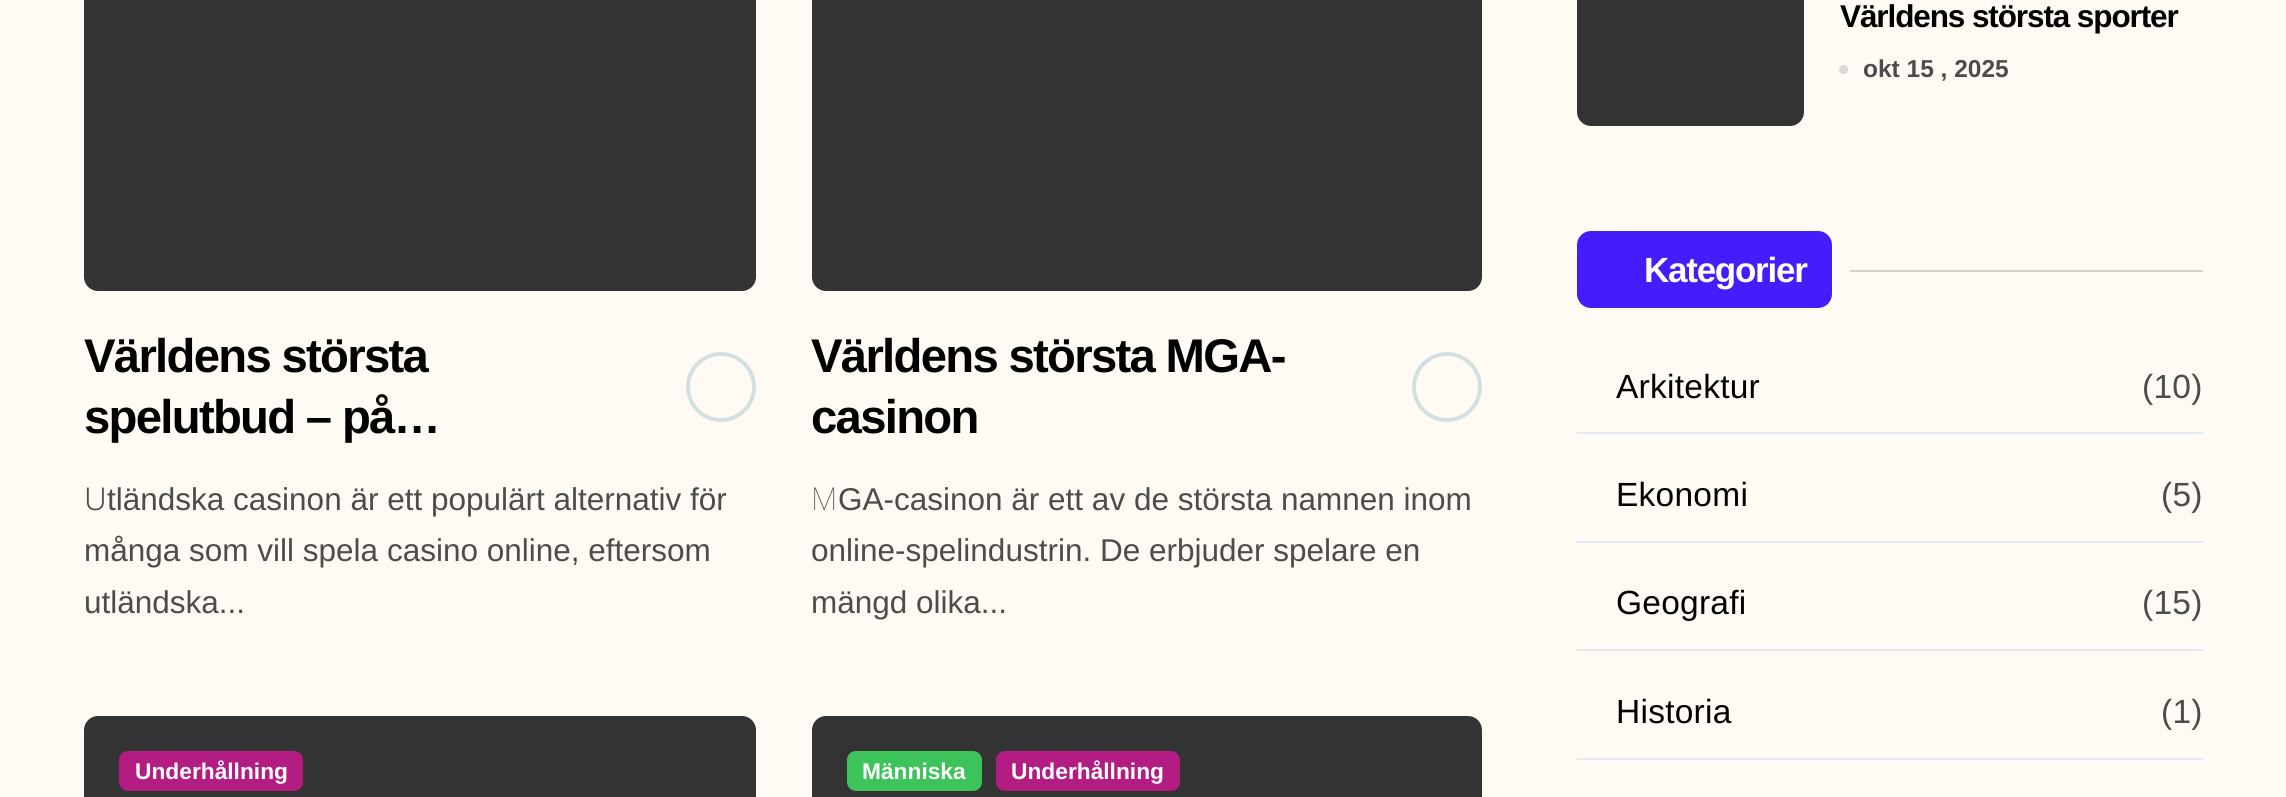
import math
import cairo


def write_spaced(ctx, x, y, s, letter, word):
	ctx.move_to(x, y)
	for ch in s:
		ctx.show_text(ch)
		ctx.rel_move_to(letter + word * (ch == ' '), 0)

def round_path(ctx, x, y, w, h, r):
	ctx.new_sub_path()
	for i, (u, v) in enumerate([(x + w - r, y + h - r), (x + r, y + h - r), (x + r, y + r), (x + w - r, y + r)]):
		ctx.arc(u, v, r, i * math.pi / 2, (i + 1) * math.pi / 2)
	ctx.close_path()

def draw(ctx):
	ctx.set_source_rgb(1, 0.984, 0.957)
	ctx.paint()
	ctx.set_source_rgb(0.2, 0.2, 0.2)
	round_path(ctx, 84, -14, 672, 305, 14)
	ctx.fill()
	ctx.select_font_face('Liberation Sans', cairo.FONT_SLANT_NORMAL, cairo.FONT_WEIGHT_BOLD)
	ctx.set_font_size(47.25)
	ctx.set_source_rgb(0, 0, 0)
	write_spaced(ctx, 84, 372, 'Världens största', -1.7, 0)
	write_spaced(ctx, 84, 433, 'spelutbud – på…', -1.7, 0)
	ctx.new_path()
	ctx.arc(721, 387, 33, 0, 2 * math.pi)
	ctx.set_source_rgb(0.827, 0.878, 0.886)
	ctx.set_line_width(4)
	ctx.stroke()
	ctx.select_font_face('Noto Sans Light')
	ctx.set_font_size(31.5)
	ctx.set_source_rgb(0.298, 0.298, 0.298)
	ctx.move_to(84, 510)
	ctx.show_text('U')
	ctx.select_font_face('Liberation Sans')
	for x, y, s in [
		(107, 510, 'tländska casinon är ett populärt alternativ för'),
		(84, 561, 'många som vill spela casino online, eftersom'),
		(84, 613, 'utländska...'),
	]:
		ctx.move_to(x, y)
		ctx.show_text(s)
	ctx.set_source_rgb(0.2, 0.2, 0.2)
	round_path(ctx, 812, -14, 670, 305, 14)
	ctx.fill()
	ctx.select_font_face('Liberation Sans', cairo.FONT_SLANT_NORMAL, cairo.FONT_WEIGHT_BOLD)
	ctx.set_font_size(47.25)
	ctx.set_source_rgb(0, 0, 0)
	write_spaced(ctx, 811, 372, 'Världens största MGA-', -1.7, 0)
	write_spaced(ctx, 811, 433, 'casinon', -1.7, 0)
	ctx.new_path()
	ctx.arc(1447, 387, 33, 0, 2 * math.pi)
	ctx.set_source_rgb(0.827, 0.878, 0.886)
	ctx.stroke()
	ctx.select_font_face('Noto Sans Thin')
	ctx.set_font_size(31.5)
	ctx.set_source_rgb(0.298, 0.298, 0.298)
	ctx.move_to(811, 510)
	ctx.show_text('M')
	ctx.select_font_face('Liberation Sans')
	for x, y, s in [
		(838, 510, 'GA-casinon är ett av de största namnen inom'),
		(811, 561, 'online-spelindustrin. De erbjuder spelare en'),
		(811, 613, 'mängd olika...'),
	]:
		ctx.move_to(x, y)
		ctx.show_text(s)
	ctx.set_source_rgb(0.2, 0.2, 0.2)
	round_path(ctx, 84, 716, 672, 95, 14)
	ctx.fill()
	ctx.set_source_rgb(0.698, 0.11, 0.514)
	round_path(ctx, 120, 752, 182, 38, 8)
	ctx.fill_preserve()
	ctx.set_line_width(2)
	ctx.stroke()
	ctx.select_font_face('Liberation Sans', cairo.FONT_SLANT_NORMAL, cairo.FONT_WEIGHT_BOLD)
	ctx.set_font_size(22.75)
	ctx.set_source_rgb(1, 1, 1)
	ctx.move_to(135, 779)
	ctx.show_text('Underhållning')
	ctx.set_source_rgb(0.2, 0.2, 0.2)
	round_path(ctx, 812, 716, 670, 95, 14)
	ctx.fill()
	ctx.set_source_rgb(0.235, 0.769, 0.353)
	round_path(ctx, 848, 752, 133, 38, 8)
	ctx.fill_preserve()
	ctx.stroke()
	ctx.set_source_rgb(1, 1, 1)
	ctx.move_to(862, 779)
	ctx.show_text('Människa')
	ctx.set_source_rgb(0.698, 0.11, 0.514)
	round_path(ctx, 997, 752, 182, 38, 8)
	ctx.fill_preserve()
	ctx.stroke()
	ctx.set_source_rgb(1, 1, 1)
	ctx.move_to(1011, 779)
	ctx.show_text('Underhållning')
	ctx.set_source_rgb(0.2, 0.2, 0.2)
	round_path(ctx, 1577, -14, 227, 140, 14)
	ctx.fill()
	ctx.set_font_size(31.5)
	ctx.set_source_rgb(0, 0, 0)
	write_spaced(ctx, 1840, 27, 'Världens största sporter', -1.1, 0)
	ctx.set_source_rgb(0.859, 0.855, 0.851)
	ctx.new_path()
	ctx.arc(1843.5, 69.5, 4.5, 0, 2 * math.pi)
	ctx.fill()
	ctx.set_font_size(24.5)
	ctx.set_source_rgb(0.298, 0.298, 0.298)
	ctx.move_to(1863, 77)
	ctx.show_text('okt 15 , 2025')
	ctx.set_source_rgb(0.275, 0.11, 0.984)
	round_path(ctx, 1577, 231, 255, 77, 14)
	ctx.fill()
	ctx.set_font_size(35)
	ctx.set_source_rgb(1, 1, 1)
	write_spaced(ctx, 1644, 282, 'Kategorier', -1.25, 0)
	ctx.set_source_rgb(0.843, 0.831, 0.812)
	ctx.rectangle(1850, 270, 353, 2)
	ctx.fill()
	ctx.set_source_rgb(0.886, 0.91, 0.941)
	ctx.rectangle(1577, 432, 626, 2)
	ctx.fill()
	ctx.select_font_face('Liberation Sans')
	ctx.set_font_size(33.5)
	ctx.set_source_rgb(0, 0, 0)
	write_spaced(ctx, 1616, 398, 'Arkitektur', 0.25, 0)
	ctx.set_source_rgb(0.298, 0.298, 0.298)
	write_spaced(ctx, 2142, 398, '(10)', 0.25, 0)
	ctx.set_source_rgb(0.886, 0.91, 0.941)
	ctx.rectangle(1577, 541, 626, 2)
	ctx.fill()
	ctx.set_source_rgb(0, 0, 0)
	write_spaced(ctx, 1616, 506, 'Ekonomi', 0.25, 0)
	ctx.set_source_rgb(0.298, 0.298, 0.298)
	write_spaced(ctx, 2161, 506, '(5)', 0.25, 0)
	ctx.set_source_rgb(0.886, 0.91, 0.941)
	ctx.rectangle(1577, 649, 626, 2)
	ctx.fill()
	ctx.set_source_rgb(0, 0, 0)
	write_spaced(ctx, 1616, 614, 'Geografi', 0.25, 0)
	ctx.set_source_rgb(0.298, 0.298, 0.298)
	write_spaced(ctx, 2142, 614, '(15)', 0.25, 0)
	ctx.set_source_rgb(0.886, 0.91, 0.941)
	ctx.rectangle(1577, 758, 626, 2)
	ctx.fill()
	ctx.set_source_rgb(0, 0, 0)
	write_spaced(ctx, 1616, 723, 'Historia', 0.25, 0)
	ctx.set_source_rgb(0.298, 0.298, 0.298)
	write_spaced(ctx, 2161, 723, '(1)', 0.25, 0)


surface = cairo.ImageSurface(cairo.FORMAT_RGB24, 2286, 797)
ctx = cairo.Context(surface)
options = cairo.FontOptions()
options.set_hint_metrics(cairo.HINT_METRICS_OFF)
options.set_hint_style(cairo.HINT_STYLE_NONE)
ctx.set_font_options(options)
ctx.set_miter_limit(4)
draw(ctx)
surface.write_to_png('image.png')
